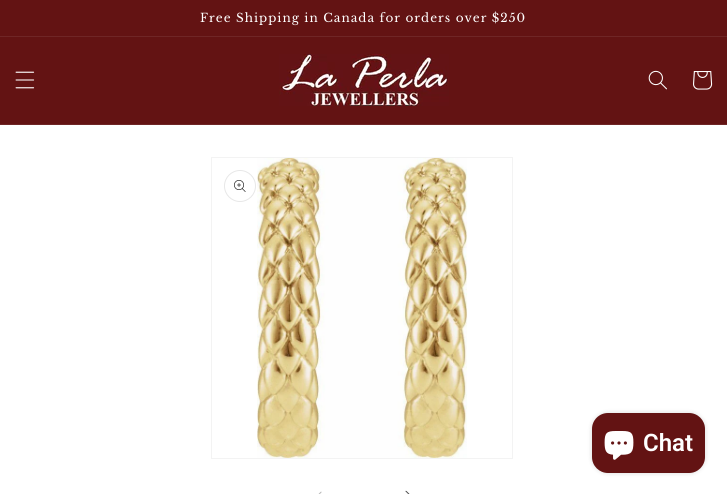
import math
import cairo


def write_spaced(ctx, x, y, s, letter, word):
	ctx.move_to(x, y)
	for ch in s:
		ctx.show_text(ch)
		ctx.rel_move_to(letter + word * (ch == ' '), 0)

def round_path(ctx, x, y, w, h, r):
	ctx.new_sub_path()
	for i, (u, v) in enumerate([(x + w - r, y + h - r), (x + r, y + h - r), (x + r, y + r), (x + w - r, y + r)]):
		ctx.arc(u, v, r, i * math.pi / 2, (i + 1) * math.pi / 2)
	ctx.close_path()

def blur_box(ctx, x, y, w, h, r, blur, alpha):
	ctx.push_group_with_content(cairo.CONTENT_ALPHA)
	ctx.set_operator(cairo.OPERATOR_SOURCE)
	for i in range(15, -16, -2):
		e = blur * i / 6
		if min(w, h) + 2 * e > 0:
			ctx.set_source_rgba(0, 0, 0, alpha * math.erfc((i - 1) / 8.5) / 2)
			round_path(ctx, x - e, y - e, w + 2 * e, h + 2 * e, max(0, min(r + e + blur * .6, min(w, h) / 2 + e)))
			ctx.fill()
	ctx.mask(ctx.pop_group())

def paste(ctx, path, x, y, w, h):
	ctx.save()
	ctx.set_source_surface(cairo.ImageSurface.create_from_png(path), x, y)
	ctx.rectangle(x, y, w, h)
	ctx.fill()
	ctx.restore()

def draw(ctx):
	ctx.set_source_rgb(1, 1, 1)
	ctx.paint()
	ctx.set_source_rgb(0.388, 0.075, 0.075)
	ctx.rectangle(0, 0, 727, 36)
	ctx.fill()
	ctx.set_source_rgb(0.435, 0.149, 0.149)
	ctx.rectangle(0, 36, 727, 1)
	ctx.fill()
	ctx.select_font_face('Libre Baskerville')
	ctx.set_font_size(12)
	ctx.set_source_rgb(1, 1, 1)
	write_spaced(ctx, 200, 22, 'Free Shipping in Canada for orders over $250', 1, 0)
	ctx.set_source_rgb(0.388, 0.075, 0.075)
	ctx.rectangle(0, 37, 727, 87)
	ctx.fill()
	ctx.set_source_rgb(0.435, 0.149, 0.149)
	ctx.rectangle(0, 124, 727, 1)
	ctx.fill()
	paste(ctx, 'media/1.png', 15, 71, 20, 18)
	paste(ctx, 'media/2.png', 279, 54, 170, 52)
	paste(ctx, 'media/3.png', 648, 70, 19, 20)
	paste(ctx, 'media/4.png', 693, 71, 20, 19)
	ctx.rectangle(211.5, 157.5, 301, 301)
	ctx.set_source_rgb(0.953, 0.953, 0.953)
	ctx.set_line_width(1)
	ctx.stroke()
	ctx.arc(240, 186, 15.5, 0, 2 * math.pi)
	ctx.set_source_rgb(0.906, 0.906, 0.906)
	ctx.stroke()
	paste(ctx, 'media/5.png', 234, 180, 12, 12)
	paste(ctx, 'media/6.png', 257, 158, 211, 300)
	paste(ctx, 'media/7.png', 318, 491, 4, 3)
	paste(ctx, 'media/8.png', 405, 490, 5, 4)
	ctx.set_source_rgb(0, 0, 0)
	blur_box(ctx, 592, 413, 113, 60, 16, 2.5, 0.15)
	ctx.set_source_rgb(0.388, 0.075, 0.075)
	round_path(ctx, 592, 413, 113, 60, 16)
	ctx.fill()
	paste(ctx, 'media/9.png', 604, 431, 30, 29)
	ctx.select_font_face('Roboto SemiBold')
	ctx.set_font_size(24)
	ctx.set_source_rgb(1, 1, 1)
	ctx.move_to(643, 451)
	ctx.show_text('Chat')


surface = cairo.ImageSurface(cairo.FORMAT_RGB24, 727, 494)
ctx = cairo.Context(surface)
options = cairo.FontOptions()
options.set_hint_metrics(cairo.HINT_METRICS_OFF)
options.set_hint_style(cairo.HINT_STYLE_NONE)
ctx.set_font_options(options)
ctx.set_miter_limit(4)
draw(ctx)
surface.write_to_png('image.png')
